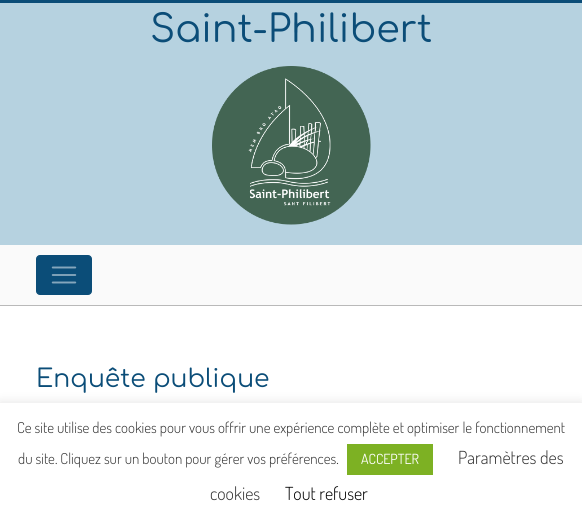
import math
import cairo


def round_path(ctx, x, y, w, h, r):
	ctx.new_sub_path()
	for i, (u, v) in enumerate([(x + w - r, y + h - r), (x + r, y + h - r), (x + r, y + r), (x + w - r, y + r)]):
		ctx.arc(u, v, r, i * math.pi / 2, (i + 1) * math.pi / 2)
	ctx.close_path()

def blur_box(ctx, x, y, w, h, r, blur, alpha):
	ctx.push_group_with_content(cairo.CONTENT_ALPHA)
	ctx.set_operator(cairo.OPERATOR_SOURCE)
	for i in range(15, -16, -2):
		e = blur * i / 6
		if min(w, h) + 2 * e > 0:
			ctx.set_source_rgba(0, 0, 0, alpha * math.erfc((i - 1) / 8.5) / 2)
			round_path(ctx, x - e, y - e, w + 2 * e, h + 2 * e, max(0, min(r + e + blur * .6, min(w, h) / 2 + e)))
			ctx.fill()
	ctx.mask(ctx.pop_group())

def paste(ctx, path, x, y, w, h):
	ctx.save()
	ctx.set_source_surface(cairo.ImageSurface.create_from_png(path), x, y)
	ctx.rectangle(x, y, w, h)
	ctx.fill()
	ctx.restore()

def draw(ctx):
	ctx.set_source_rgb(1, 1, 1)
	ctx.paint()
	ctx.set_source_rgb(0.714, 0.824, 0.878)
	ctx.rectangle(0, 3, 582, 242)
	ctx.fill()
	ctx.set_source_rgb(0.043, 0.302, 0.471)
	ctx.rectangle(0, 0, 582, 3)
	ctx.fill()
	ctx.select_font_face('Comfortaa')
	ctx.set_font_size(38)
	ctx.move_to(150, 42)
	ctx.show_text('Saint-Philibert')
	paste(ctx, 'media/1.png', 212, 66, 159, 159)
	ctx.set_source_rgb(0.98, 0.98, 0.98)
	ctx.rectangle(0, 245, 582, 60)
	ctx.fill()
	ctx.set_source_rgb(0.725, 0.725, 0.725)
	ctx.rectangle(0, 305, 582, 1)
	ctx.fill()
	ctx.set_source_rgb(0.043, 0.302, 0.471)
	round_path(ctx, 36.5, 255.5, 55, 39, 3.5)
	ctx.fill_preserve()
	ctx.set_line_width(1)
	ctx.stroke()
	paste(ctx, 'media/2.png', 51, 266, 26, 18)
	ctx.set_font_size(25)
	ctx.move_to(36, 387)
	ctx.show_text('Enquête publique')
	ctx.set_source_rgb(0.675, 0.671, 0.671)
	blur_box(ctx, 0, 402, 582, 116, 0, 5, 0.3)
	ctx.set_source_rgb(1, 1, 1)
	ctx.rectangle(0, 403, 582, 116)
	ctx.fill()
	ctx.select_font_face('Dosis Light')
	ctx.set_font_size(15)
	ctx.set_source_rgb(0.2, 0.2, 0.2)
	ctx.move_to(17, 433)
	ctx.show_text('Ce site utilise des cookies pour vous offrir une expérience complète et optimiser le fonctionnement')
	ctx.move_to(18, 464)
	ctx.show_text('du site. Cliquez sur un bouton pour gérer vos préférences.')
	ctx.set_source_rgb(0.49, 0.694, 0.137)
	ctx.rectangle(347, 444, 86, 31)
	ctx.fill()
	ctx.select_font_face('Dosis')
	ctx.set_font_size(14)
	ctx.set_source_rgb(1, 1, 1)
	ctx.move_to(361, 464)
	ctx.show_text('ACCEPTER')
	ctx.select_font_face('Dosis Light')
	ctx.set_font_size(18)
	ctx.set_source_rgb(0.2, 0.2, 0.2)
	ctx.move_to(458, 464)
	ctx.show_text('Paramètres des')
	ctx.move_to(210, 500)
	ctx.show_text('cookies')
	ctx.set_source_rgb(0, 0, 0)
	ctx.move_to(285, 500)
	ctx.show_text('Tout refuser')


surface = cairo.ImageSurface(cairo.FORMAT_RGB24, 582, 519)
ctx = cairo.Context(surface)
options = cairo.FontOptions()
options.set_hint_metrics(cairo.HINT_METRICS_OFF)
options.set_hint_style(cairo.HINT_STYLE_NONE)
ctx.set_font_options(options)
ctx.set_miter_limit(4)
draw(ctx)
surface.write_to_png('image.png')
